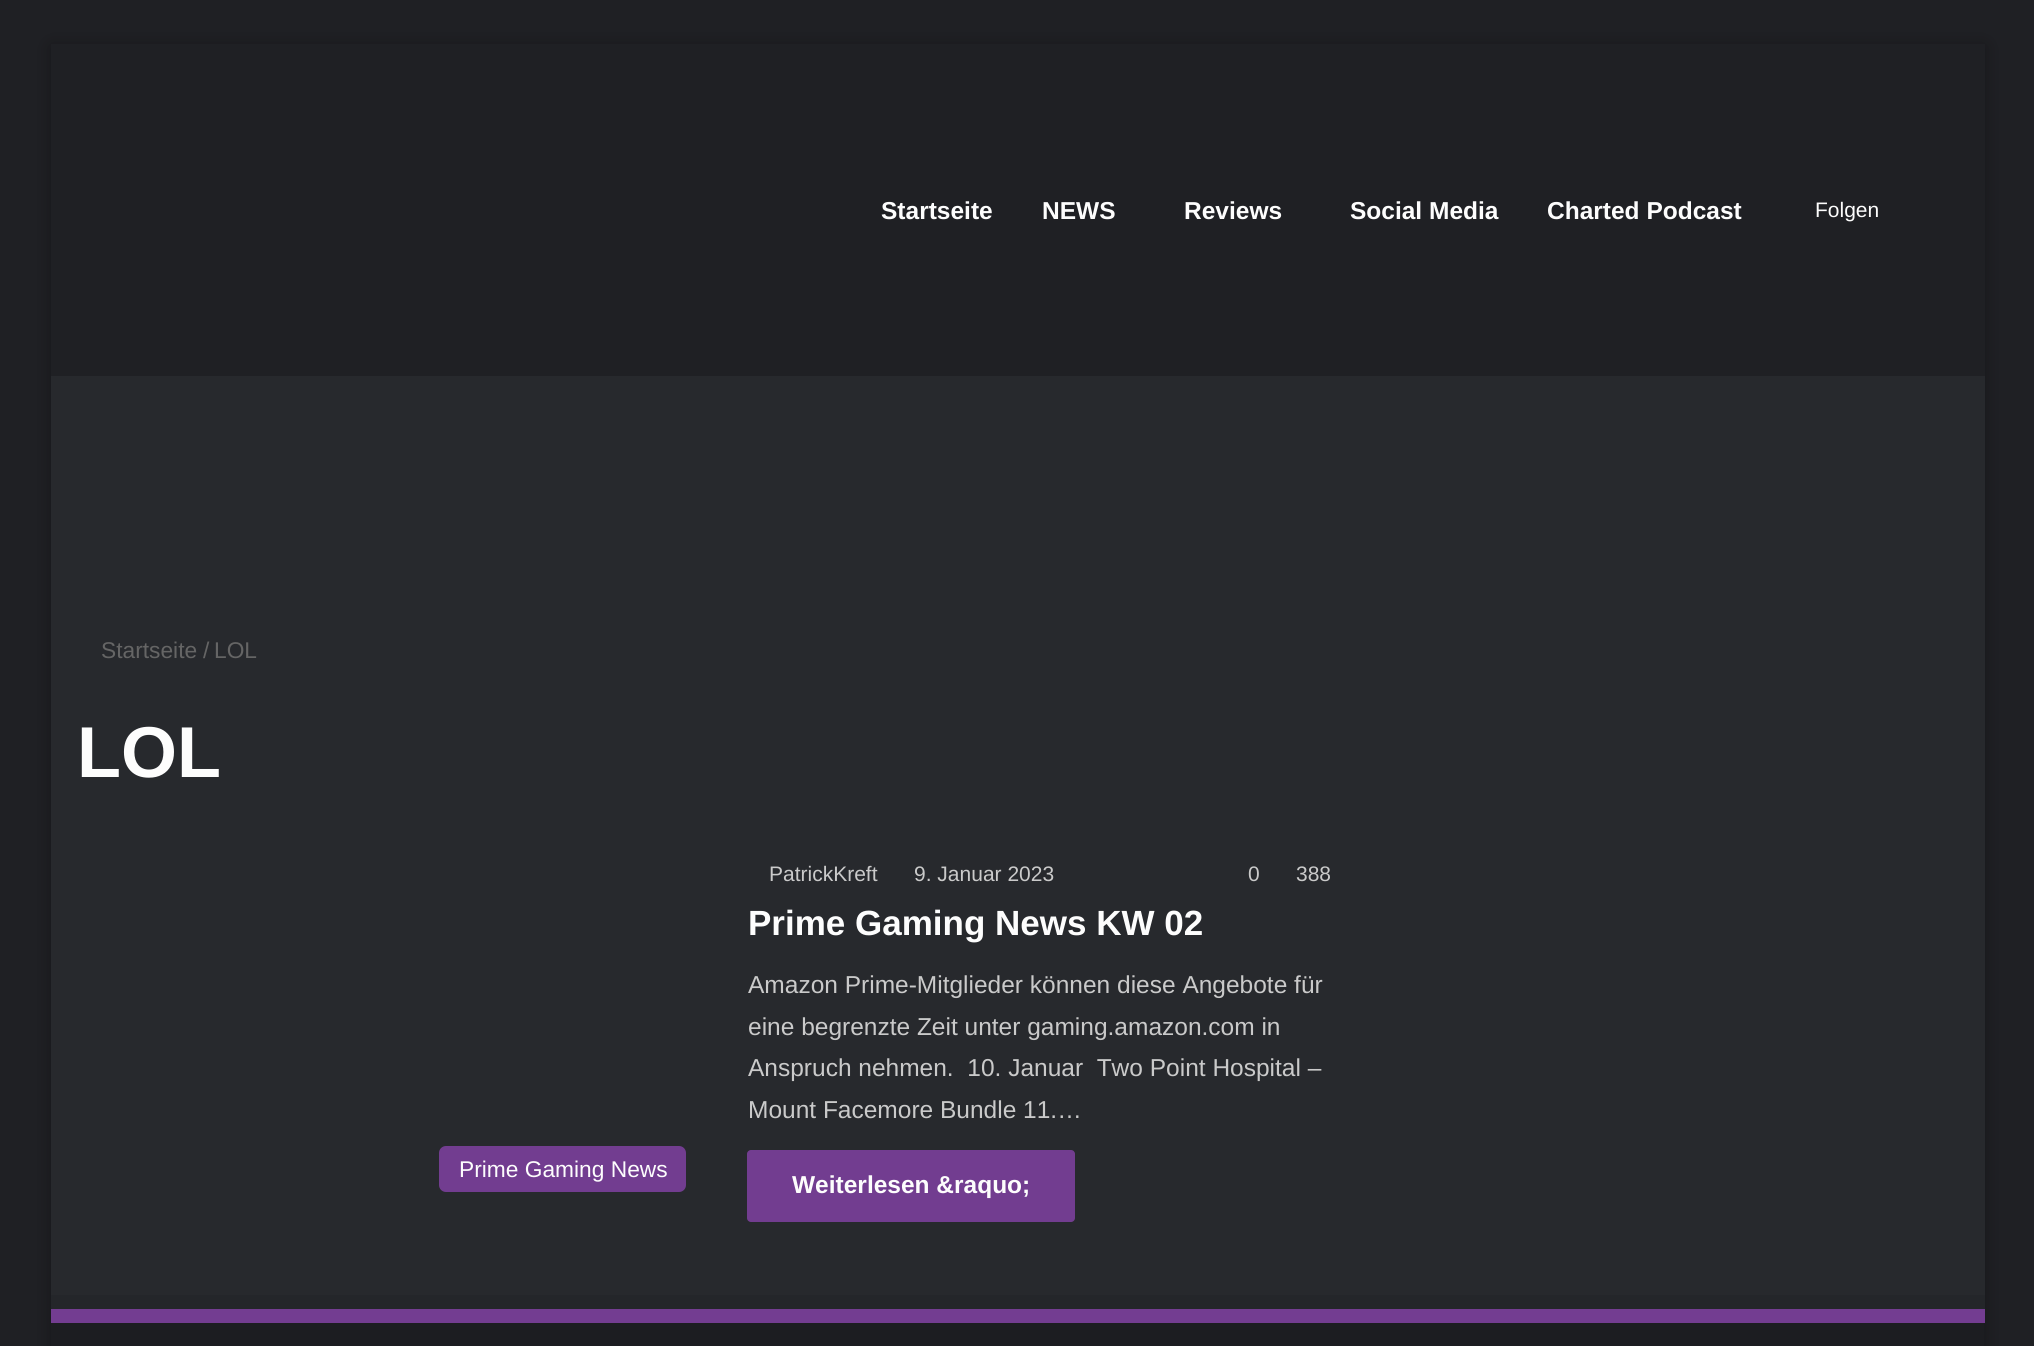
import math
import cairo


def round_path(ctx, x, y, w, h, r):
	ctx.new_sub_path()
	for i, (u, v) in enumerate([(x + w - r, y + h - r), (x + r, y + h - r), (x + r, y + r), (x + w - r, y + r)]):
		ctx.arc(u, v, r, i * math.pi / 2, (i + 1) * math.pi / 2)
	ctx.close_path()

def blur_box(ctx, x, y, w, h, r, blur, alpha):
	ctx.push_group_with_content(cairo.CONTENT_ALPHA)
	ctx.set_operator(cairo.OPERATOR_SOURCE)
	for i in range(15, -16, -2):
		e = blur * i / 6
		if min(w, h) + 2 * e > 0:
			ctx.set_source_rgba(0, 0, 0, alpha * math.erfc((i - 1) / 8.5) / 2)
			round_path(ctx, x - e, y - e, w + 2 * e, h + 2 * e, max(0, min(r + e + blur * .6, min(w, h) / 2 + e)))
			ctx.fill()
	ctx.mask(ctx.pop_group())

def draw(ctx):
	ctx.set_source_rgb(0.122, 0.125, 0.141)
	ctx.paint()
	ctx.set_source_rgb(0, 0, 0)
	blur_box(ctx, 51, 46, 1934, 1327, 0, 9, 0.3)
	ctx.set_source_rgb(0.153, 0.161, 0.176)
	ctx.rectangle(51, 376, 1934, 933)
	ctx.fill()
	ctx.set_source_rgb(0.122, 0.125, 0.141)
	ctx.rectangle(51, 44, 1934, 332)
	ctx.fill()
	ctx.select_font_face('Liberation Sans', cairo.FONT_SLANT_NORMAL, cairo.FONT_WEIGHT_BOLD)
	ctx.set_font_size(24.5)
	ctx.set_source_rgb(0.992, 0.992, 0.992)
	for x, y, s in [
		(881, 219, 'Startseite'),
		(1042, 219, 'NEWS'),
		(1184, 219, 'Reviews'),
		(1350, 219, 'Social Media'),
		(1547, 219, 'Charted Podcast'),
	]:
		ctx.move_to(x, y)
		ctx.show_text(s)
	ctx.select_font_face('Liberation Sans')
	ctx.set_font_size(21)
	ctx.move_to(1815, 217)
	ctx.show_text('Folgen')
	ctx.set_font_size(22.75)
	ctx.set_source_rgb(0.396, 0.396, 0.396)
	for x, y, s in [
		(101, 658, 'Startseite'),
		(203, 658, '/'),
		(214, 658, 'LOL'),
	]:
		ctx.move_to(x, y)
		ctx.show_text(s)
	ctx.select_font_face('Liberation Sans', cairo.FONT_SLANT_NORMAL, cairo.FONT_WEIGHT_BOLD)
	ctx.set_font_size(72)
	ctx.set_source_rgb(0.992, 0.992, 0.992)
	ctx.move_to(77, 777)
	ctx.show_text('LOL')
	ctx.set_source_rgb(0.447, 0.239, 0.565)
	round_path(ctx, 439, 1146, 247, 46, 7)
	ctx.fill()
	ctx.select_font_face('Liberation Sans')
	ctx.set_font_size(22.75)
	ctx.set_source_rgb(0.992, 0.992, 0.992)
	ctx.move_to(459, 1177)
	ctx.show_text('Prime Gaming News')
	ctx.set_font_size(21)
	ctx.set_source_rgb(0.792, 0.792, 0.792)
	for x, y, s in [
		(769, 881, 'PatrickKreft'),
		(914, 881, '9. Januar 2023'),
		(1248, 881, '0'),
		(1296, 881, '388'),
	]:
		ctx.move_to(x, y)
		ctx.show_text(s)
	ctx.select_font_face('Liberation Sans', cairo.FONT_SLANT_NORMAL, cairo.FONT_WEIGHT_BOLD)
	ctx.set_font_size(35)
	ctx.set_source_rgb(0.992, 0.992, 0.992)
	ctx.move_to(748, 935)
	ctx.show_text('Prime Gaming News KW 02')
	ctx.select_font_face('Liberation Sans')
	ctx.set_font_size(24.5)
	ctx.set_source_rgb(0.792, 0.792, 0.792)
	for x, y, s in [
		(748, 993, 'Amazon Prime-Mitglieder können diese Angebote für'),
		(748, 1035, 'eine begrenzte Zeit unter gaming.amazon.com in'),
		(748, 1076, 'Anspruch nehmen.  10. Januar  Two Point Hospital –'),
		(748, 1118, 'Mount Facemore Bundle 11.…'),
	]:
		ctx.move_to(x, y)
		ctx.show_text(s)
	ctx.set_source_rgb(0.447, 0.239, 0.565)
	round_path(ctx, 747, 1150, 328, 72, 4)
	ctx.fill()
	ctx.select_font_face('Liberation Sans', cairo.FONT_SLANT_NORMAL, cairo.FONT_WEIGHT_BOLD)
	ctx.set_source_rgb(0.992, 0.992, 0.992)
	ctx.move_to(792, 1193)
	ctx.show_text('Weiterlesen &raquo;')
	ctx.set_source_rgb(0.11, 0.114, 0.129)
	ctx.rectangle(51, 1323, 1934, 23)
	ctx.fill()
	ctx.set_source_rgba(0, 0, 0, 0.07)
	ctx.new_path()
	ctx.move_to(51, 1295)
	ctx.line_to(51, 1309)
	ctx.line_to(1984, 1309)
	ctx.line_to(1984, 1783)
	ctx.line_to(1985, 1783)
	ctx.line_to(1985, 1295)
	ctx.close_path()
	ctx.fill()
	ctx.set_source_rgb(0.451, 0.239, 0.569)
	ctx.rectangle(51, 1309, 1934, 14)
	ctx.fill()


surface = cairo.ImageSurface(cairo.FORMAT_RGB24, 2034, 1346)
ctx = cairo.Context(surface)
options = cairo.FontOptions()
options.set_hint_metrics(cairo.HINT_METRICS_OFF)
options.set_hint_style(cairo.HINT_STYLE_NONE)
ctx.set_font_options(options)
ctx.set_miter_limit(4)
draw(ctx)
surface.write_to_png('image.png')
